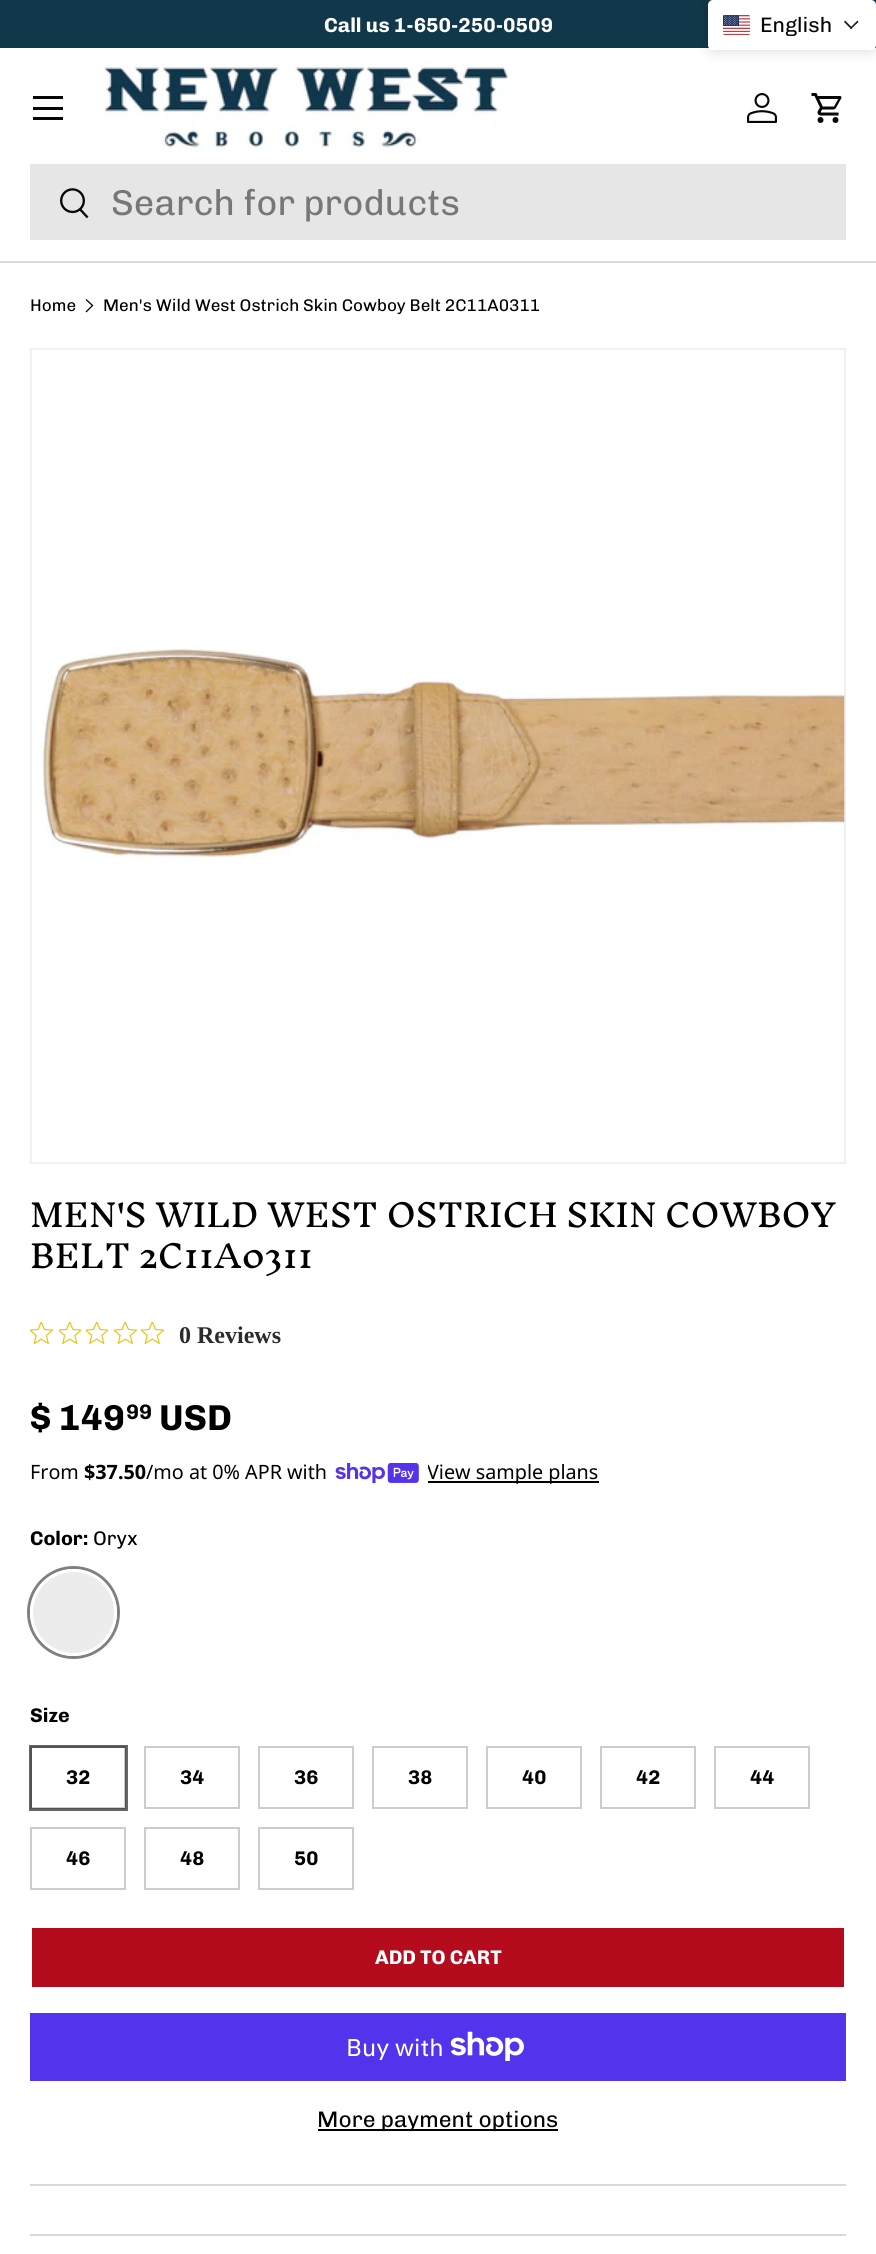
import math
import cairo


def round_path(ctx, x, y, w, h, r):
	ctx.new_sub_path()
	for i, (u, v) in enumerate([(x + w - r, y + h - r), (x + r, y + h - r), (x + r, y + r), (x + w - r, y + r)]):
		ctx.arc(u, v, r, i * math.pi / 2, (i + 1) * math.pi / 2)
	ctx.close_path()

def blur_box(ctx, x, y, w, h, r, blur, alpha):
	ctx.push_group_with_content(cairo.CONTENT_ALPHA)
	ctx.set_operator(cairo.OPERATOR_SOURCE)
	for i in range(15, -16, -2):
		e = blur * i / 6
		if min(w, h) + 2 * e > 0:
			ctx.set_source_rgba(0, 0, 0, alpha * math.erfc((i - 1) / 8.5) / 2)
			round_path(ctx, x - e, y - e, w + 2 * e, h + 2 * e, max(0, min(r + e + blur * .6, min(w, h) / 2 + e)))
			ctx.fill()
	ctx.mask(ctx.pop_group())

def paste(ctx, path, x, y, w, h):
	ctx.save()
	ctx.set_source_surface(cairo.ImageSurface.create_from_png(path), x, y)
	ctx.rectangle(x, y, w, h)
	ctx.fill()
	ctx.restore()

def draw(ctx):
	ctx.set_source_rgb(1, 1, 1)
	ctx.paint()
	ctx.set_source_rgb(0.063, 0.216, 0.29)
	ctx.rectangle(0, 0, 876, 48)
	ctx.fill()
	ctx.select_font_face('Chivo', cairo.FONT_SLANT_NORMAL, cairo.FONT_WEIGHT_BOLD)
	ctx.set_font_size(20.25)
	ctx.set_source_rgb(1, 1, 1)
	ctx.move_to(324, 32)
	ctx.show_text('Call us 1-650-250-0509')
	ctx.set_source_rgb(0, 0, 0)
	blur_box(ctx, 708, 0, 168, 50, 5, 7.5, 0.15)
	ctx.set_source_rgb(1, 1, 1)
	round_path(ctx, 708, 0, 168, 50, 5)
	ctx.fill()
	paste(ctx, 'media/1.png', 723, 15, 27, 20)
	ctx.select_font_face('Chivo')
	ctx.set_font_size(21)
	ctx.set_source_rgb(0.027, 0.027, 0.027)
	ctx.move_to(760, 32)
	ctx.show_text('English')
	ctx.set_source_rgb(0.102, 0.102, 0.102)
	ctx.new_path()
	ctx.move_to(857.5, 20.5)
	ctx.line_to(858.5, 22)
	ctx.line_to(851, 29)
	ctx.line_to(850, 28)
	ctx.close_path()
	ctx.fill()
	ctx.new_path()
	ctx.move_to(845, 20.5)
	ctx.line_to(852.5, 28)
	ctx.line_to(851, 29)
	ctx.line_to(844, 22)
	ctx.close_path()
	ctx.fill()
	ctx.set_source_rgb(0.855, 0.855, 0.855)
	ctx.rectangle(0, 261, 876, 2)
	ctx.fill()
	ctx.set_source_rgb(0.027, 0.027, 0.027)
	ctx.rectangle(33, 96, 30, 3)
	ctx.rectangle(33, 117, 30, 3)
	ctx.rectangle(33, 107, 30, 3)
	ctx.fill()
	paste(ctx, 'media/2.png', 96, 60, 418, 94)
	paste(ctx, 'media/3.png', 747, 93, 30, 30)
	paste(ctx, 'media/4.png', 811, 93, 31, 30)
	ctx.set_source_rgb(0.902, 0.902, 0.902)
	ctx.rectangle(30, 164, 816, 76)
	ctx.fill()
	paste(ctx, 'media/5.png', 60, 188, 29, 31)
	ctx.set_font_size(36)
	ctx.set_source_rgb(0.467, 0.467, 0.467)
	ctx.move_to(111, 215)
	ctx.show_text('Search for products')
	ctx.set_font_size(16.9)
	ctx.set_source_rgb(0, 0, 0)
	ctx.move_to(30, 311)
	ctx.show_text('Home')
	ctx.new_path()
	ctx.move_to(86, 299.5)
	ctx.line_to(92.5, 305.5)
	ctx.line_to(86, 312)
	ctx.set_line_width(1.3)
	ctx.stroke()
	ctx.move_to(103, 311)
	ctx.show_text('Men\'s Wild West Ostrich Skin Cowboy Belt 2C11A0311')
	ctx.rectangle(31, 349, 814, 814)
	ctx.set_source_rgb(0.933, 0.933, 0.933)
	ctx.set_line_width(2)
	ctx.stroke()
	paste(ctx, 'media/6.png', 31, 349, 814, 814)
	ctx.select_font_face('Inknut Antiqua')
	ctx.set_font_size(31.25)
	ctx.set_source_rgb(0, 0, 0)
	ctx.move_to(30, 1227)
	ctx.show_text('MEN\'S WILD WEST OSTRICH SKIN COWBOY')
	ctx.move_to(30, 1268)
	ctx.show_text('BELT 2C11A0311')
	paste(ctx, 'media/7.png', 30, 1322, 23, 22)
	paste(ctx, 'media/8.png', 59, 1322, 22, 22)
	paste(ctx, 'media/8.png', 86, 1322, 22, 22)
	paste(ctx, 'media/7.png', 114, 1322, 23, 22)
	paste(ctx, 'media/7.png', 141, 1322, 23, 22)
	ctx.select_font_face('Liberation Serif', cairo.FONT_SLANT_NORMAL, cairo.FONT_WEIGHT_BOLD)
	ctx.set_font_size(24)
	ctx.set_source_rgb(0.173, 0.173, 0.173)
	ctx.move_to(179, 1343)
	ctx.show_text('0 Reviews')
	ctx.select_font_face('Chivo', cairo.FONT_SLANT_NORMAL, cairo.FONT_WEIGHT_BOLD)
	ctx.set_font_size(36)
	ctx.set_source_rgb(0, 0, 0)
	ctx.move_to(30, 1430)
	ctx.show_text('$ 149')
	ctx.set_font_size(21)
	ctx.move_to(126, 1419)
	ctx.show_text('99')
	ctx.set_font_size(36)
	ctx.move_to(159, 1430)
	ctx.show_text('USD')
	ctx.select_font_face('Noto Sans')
	ctx.set_font_size(19.75)
	ctx.move_to(30, 1479)
	ctx.show_text('From')
	ctx.select_font_face('Noto Sans', cairo.FONT_SLANT_NORMAL, cairo.FONT_WEIGHT_BOLD)
	ctx.move_to(84, 1479)
	ctx.show_text('$37.50')
	ctx.select_font_face('Noto Sans')
	ctx.move_to(146, 1479)
	ctx.show_text('/mo at 0% APR with')
	paste(ctx, 'media/9.png', 335, 1463, 84, 21)
	ctx.rectangle(428, 1481, 171, 2)
	ctx.fill()
	ctx.save()
	ctx.rectangle(428, 1458, 171, 30)
	ctx.clip()
	ctx.move_to(427, 1479)
	ctx.show_text('View sample plans')
	ctx.restore()
	ctx.select_font_face('Chivo', cairo.FONT_SLANT_NORMAL, cairo.FONT_WEIGHT_BOLD)
	ctx.move_to(30, 1545)
	ctx.show_text('Color:')
	ctx.select_font_face('Chivo')
	ctx.move_to(93, 1545)
	ctx.show_text('Oryx')
	ctx.new_path()
	ctx.arc(73.5, 1612.5, 45, 0, 2 * math.pi)
	ctx.set_source_rgb(0.502, 0.502, 0.502)
	ctx.set_line_width(3)
	ctx.stroke()
	ctx.arc(73.5, 1612.5, 42, 0, 2 * math.pi)
	ctx.set_source_rgb(1, 1, 1)
	ctx.stroke()
	ctx.set_source_rgb(0.922, 0.922, 0.922)
	ctx.arc(73.5, 1612.5, 40.5, 0, 2 * math.pi)
	ctx.fill()
	ctx.select_font_face('Chivo', cairo.FONT_SLANT_NORMAL, cairo.FONT_WEIGHT_BOLD)
	ctx.set_source_rgb(0, 0, 0)
	ctx.move_to(30, 1722)
	ctx.show_text('Size')
	ctx.rectangle(31, 1747, 94, 61)
	ctx.set_source_rgb(0.8, 0.8, 0.8)
	ctx.set_line_width(2)
	ctx.stroke()
	ctx.rectangle(30.5, 1746.5, 96, 63)
	ctx.set_source_rgba(0, 0, 0, 0.6)
	ctx.set_line_width(3)
	ctx.stroke()
	ctx.set_source_rgb(0, 0, 0)
	ctx.move_to(66, 1784)
	ctx.show_text('32')
	ctx.rectangle(145, 1747, 94, 61)
	ctx.set_source_rgb(0.8, 0.8, 0.8)
	ctx.set_line_width(2)
	ctx.stroke()
	ctx.set_source_rgb(0, 0, 0)
	ctx.move_to(180, 1784)
	ctx.show_text('34')
	ctx.rectangle(259, 1747, 94, 61)
	ctx.set_source_rgb(0.8, 0.8, 0.8)
	ctx.stroke()
	ctx.set_source_rgb(0, 0, 0)
	ctx.move_to(294, 1784)
	ctx.show_text('36')
	ctx.rectangle(373, 1747, 94, 61)
	ctx.set_source_rgb(0.8, 0.8, 0.8)
	ctx.stroke()
	ctx.set_source_rgb(0, 0, 0)
	ctx.move_to(408, 1784)
	ctx.show_text('38')
	ctx.rectangle(487, 1747, 94, 61)
	ctx.set_source_rgb(0.8, 0.8, 0.8)
	ctx.stroke()
	ctx.set_source_rgb(0, 0, 0)
	ctx.move_to(522, 1784)
	ctx.show_text('40')
	ctx.rectangle(601, 1747, 94, 61)
	ctx.set_source_rgb(0.8, 0.8, 0.8)
	ctx.stroke()
	ctx.set_source_rgb(0, 0, 0)
	ctx.move_to(636, 1784)
	ctx.show_text('42')
	ctx.rectangle(715, 1747, 94, 61)
	ctx.set_source_rgb(0.8, 0.8, 0.8)
	ctx.stroke()
	ctx.set_source_rgb(0, 0, 0)
	ctx.move_to(750, 1784)
	ctx.show_text('44')
	ctx.rectangle(31, 1828, 94, 61)
	ctx.set_source_rgb(0.8, 0.8, 0.8)
	ctx.stroke()
	ctx.set_source_rgb(0, 0, 0)
	ctx.move_to(66, 1865)
	ctx.show_text('46')
	ctx.rectangle(145, 1828, 94, 61)
	ctx.set_source_rgb(0.8, 0.8, 0.8)
	ctx.stroke()
	ctx.set_source_rgb(0, 0, 0)
	ctx.move_to(180, 1865)
	ctx.show_text('48')
	ctx.rectangle(259, 1828, 94, 61)
	ctx.set_source_rgb(0.8, 0.8, 0.8)
	ctx.stroke()
	ctx.set_source_rgb(0, 0, 0)
	ctx.move_to(294, 1865)
	ctx.show_text('50')
	gradient = cairo.LinearGradient(-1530, 1669, 780, 2246)
	gradient.add_color_stop_rgba(0.6, 0.757, 0.2, 0.255, 1)
	gradient.add_color_stop_rgba(0.6, 0.706, 0.047, 0.11, 1)
	gradient.add_color_stop_rgba(1, 0.706, 0.047, 0.11, 1)
	ctx.set_source(gradient)
	ctx.rectangle(32, 1928, 812, 59)
	ctx.fill()
	ctx.set_source_rgb(1, 1, 1)
	ctx.move_to(375, 1964)
	ctx.show_text('ADD TO CART')
	ctx.set_source_rgb(0.329, 0.2, 0.922)
	ctx.rectangle(30, 2013, 816, 68)
	ctx.fill()
	ctx.select_font_face('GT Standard')
	ctx.set_font_size(24)
	ctx.set_source_rgb(1, 1, 1)
	ctx.move_to(346, 2056)
	ctx.show_text('Buy with')
	paste(ctx, 'media/10.png', 450, 2031, 74, 30)
	ctx.set_source_rgb(0, 0, 0)
	ctx.rectangle(318, 2129, 240, 2)
	ctx.fill()
	ctx.select_font_face('Chivo')
	ctx.set_font_size(22.5)
	ctx.move_to(317, 2127)
	ctx.show_text('More payment options')
	ctx.set_source_rgb(0.851, 0.851, 0.851)
	ctx.rectangle(30, 2184, 816, 2)
	ctx.fill()
	ctx.rectangle(30, 2234, 816, 2)
	ctx.fill()


surface = cairo.ImageSurface(cairo.FORMAT_RGB24, 876, 2254)
ctx = cairo.Context(surface)
options = cairo.FontOptions()
options.set_hint_metrics(cairo.HINT_METRICS_OFF)
options.set_hint_style(cairo.HINT_STYLE_NONE)
ctx.set_font_options(options)
ctx.set_miter_limit(4)
draw(ctx)
surface.write_to_png('image.png')
